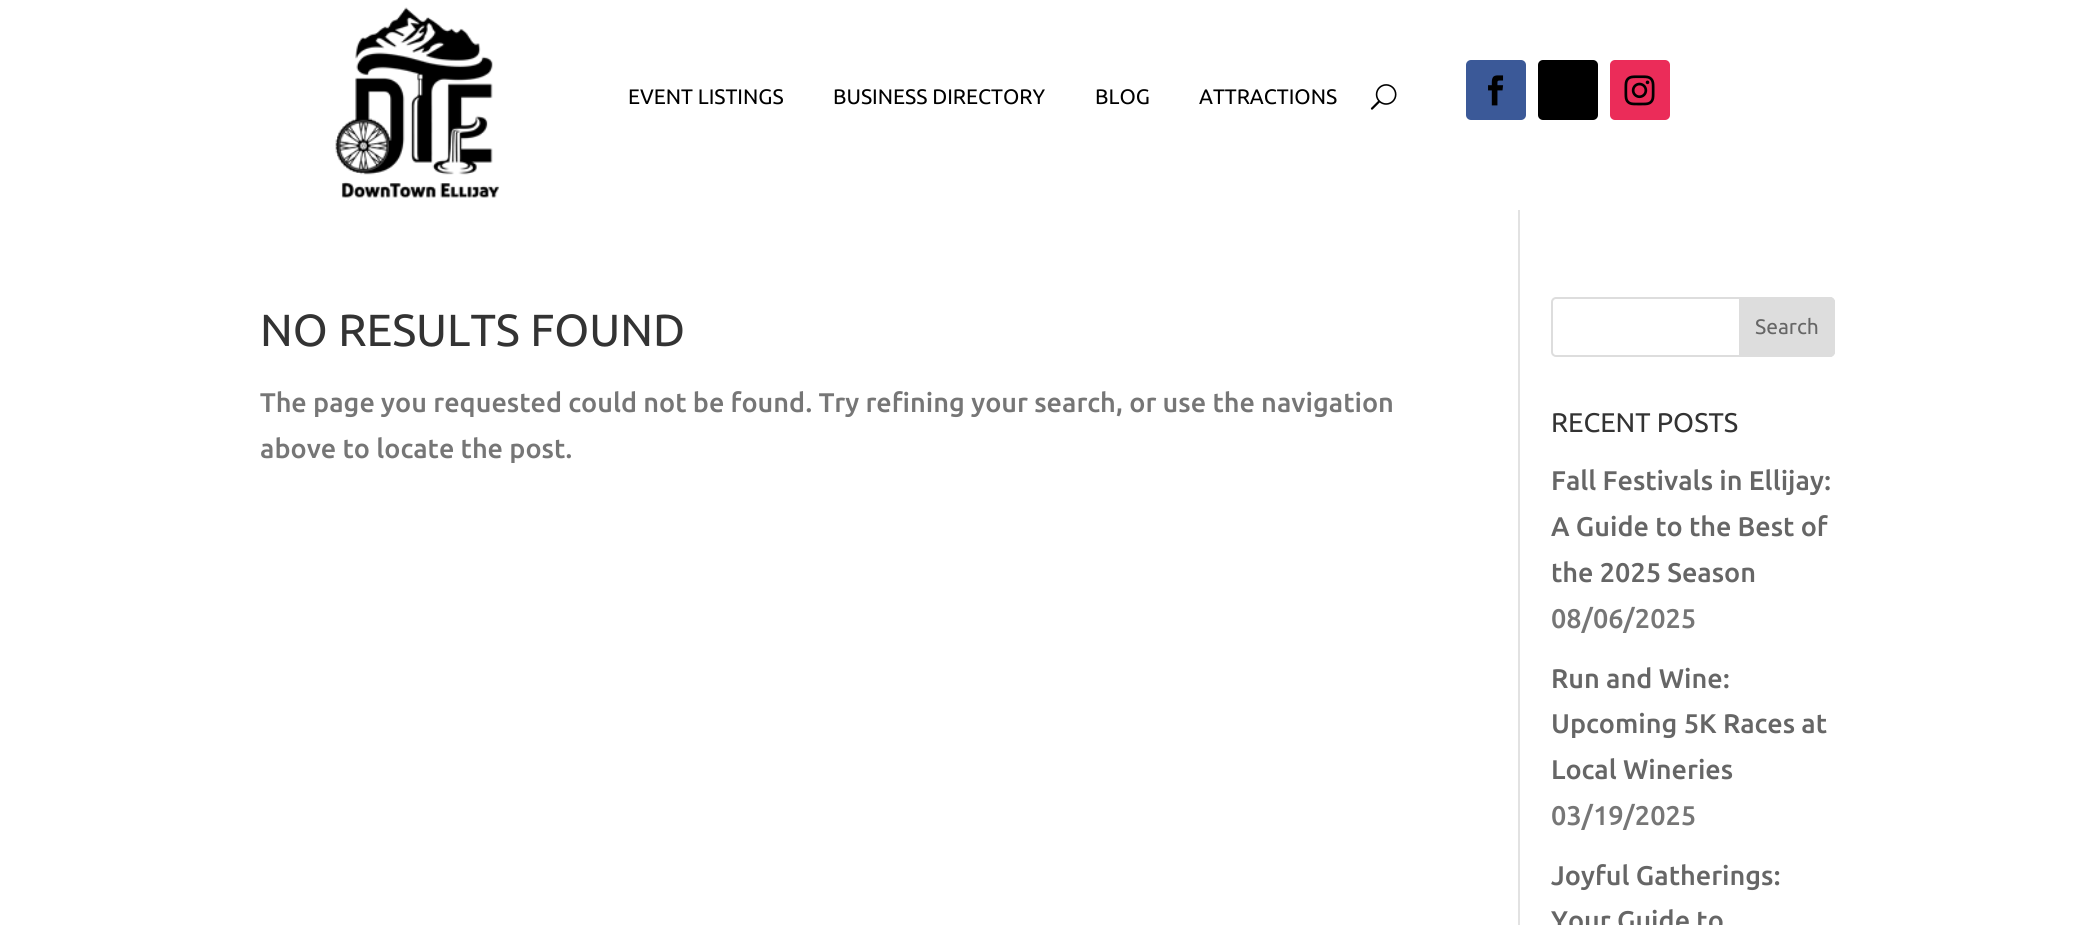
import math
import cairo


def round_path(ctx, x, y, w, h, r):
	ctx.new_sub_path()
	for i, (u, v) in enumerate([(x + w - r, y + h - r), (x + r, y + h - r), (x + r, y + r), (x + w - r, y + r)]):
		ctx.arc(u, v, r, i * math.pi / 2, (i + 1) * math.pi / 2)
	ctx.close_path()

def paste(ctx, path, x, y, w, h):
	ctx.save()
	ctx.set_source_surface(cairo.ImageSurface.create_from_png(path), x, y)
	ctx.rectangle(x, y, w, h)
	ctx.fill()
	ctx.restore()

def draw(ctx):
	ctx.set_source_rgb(1, 1, 1)
	ctx.paint()
	paste(ctx, 'media/1.png', 335, 7, 165, 191)
	ctx.select_font_face('Ubuntu')
	ctx.set_font_size(21)
	ctx.set_source_rgb(0, 0, 0)
	for x, y, s in [
		(628, 104, 'EVENT LISTINGS'),
		(833, 104, 'BUSINESS DIRECTORY'),
		(1095, 104, 'BLOG'),
		(1199, 104, 'ATTRACTIONS'),
	]:
		ctx.move_to(x, y)
		ctx.show_text(s)
	paste(ctx, 'media/2.png', 1370, 84, 27, 26)
	ctx.set_source_rgb(0.231, 0.349, 0.596)
	round_path(ctx, 1466, 60, 60, 60, 5)
	ctx.fill()
	paste(ctx, 'media/3.png', 1488, 75, 16, 31)
	ctx.set_source_rgb(0, 0, 0)
	round_path(ctx, 1538, 60, 60, 60, 5)
	ctx.fill()
	ctx.set_source_rgb(0.918, 0.173, 0.349)
	round_path(ctx, 1610, 60, 60, 60, 5)
	ctx.fill()
	paste(ctx, 'media/4.png', 1624, 75, 31, 31)
	ctx.set_source_rgb(0.886, 0.886, 0.886)
	ctx.rectangle(1518, 210, 2, 715)
	ctx.fill()
	ctx.set_font_size(45)
	ctx.set_source_rgb(0.2, 0.2, 0.2)
	ctx.move_to(260, 346)
	ctx.show_text('NO RESULTS FOUND')
	ctx.select_font_face('Ubuntu Medium')
	ctx.set_font_size(27)
	ctx.set_source_rgb(0.463, 0.463, 0.463)
	ctx.move_to(260, 412)
	ctx.show_text('The page you requested could not be found. Try refining your search, or use the navigation')
	ctx.move_to(260, 458)
	ctx.show_text('above to locate the post.')
	round_path(ctx, 1552, 298, 282, 58, 4)
	ctx.set_source_rgb(0.867, 0.867, 0.867)
	ctx.stroke()
	ctx.new_path()
	ctx.move_to(1740, 298)
	ctx.line_to(1830, 298)
	ctx.curve_to(1832, 298, 1834, 300, 1834, 302)
	ctx.line_to(1834, 352)
	ctx.curve_to(1834, 354, 1832, 356, 1830, 356)
	ctx.line_to(1740, 356)
	ctx.close_path()
	ctx.fill_preserve()
	ctx.stroke()
	ctx.select_font_face('Ubuntu')
	ctx.set_font_size(21)
	ctx.set_source_rgb(0.4, 0.4, 0.4)
	ctx.move_to(1755, 334)
	ctx.show_text('Search')
	ctx.set_font_size(27)
	ctx.set_source_rgb(0.2, 0.2, 0.2)
	ctx.move_to(1551, 432)
	ctx.show_text('RECENT POSTS')
	ctx.select_font_face('Ubuntu Medium')
	ctx.set_source_rgb(0.4, 0.4, 0.4)
	for x, y, s in [
		(1551, 490, 'Fall Festivals in Ellijay:'),
		(1551, 536, 'A Guide to the Best of'),
		(1551, 582, 'the 2025 Season'),
	]:
		ctx.move_to(x, y)
		ctx.show_text(s)
	ctx.set_source_rgb(0.463, 0.463, 0.463)
	ctx.move_to(1551, 628)
	ctx.show_text('08/06/2025')
	ctx.set_source_rgb(0.4, 0.4, 0.4)
	for x, y, s in [
		(1551, 688, 'Run and Wine:'),
		(1551, 733, 'Upcoming 5K Races at'),
		(1551, 779, 'Local Wineries'),
	]:
		ctx.move_to(x, y)
		ctx.show_text(s)
	ctx.set_source_rgb(0.463, 0.463, 0.463)
	ctx.move_to(1551, 825)
	ctx.show_text('03/19/2025')
	ctx.set_source_rgb(0.4, 0.4, 0.4)
	ctx.move_to(1551, 885)
	ctx.show_text('Joyful Gatherings:')
	ctx.move_to(1551, 930)
	ctx.show_text('Your Guide to')


surface = cairo.ImageSurface(cairo.FORMAT_RGB24, 2094, 925)
ctx = cairo.Context(surface)
options = cairo.FontOptions()
options.set_hint_metrics(cairo.HINT_METRICS_OFF)
options.set_hint_style(cairo.HINT_STYLE_NONE)
ctx.set_font_options(options)
ctx.set_miter_limit(4)
draw(ctx)
surface.write_to_png('image.png')
